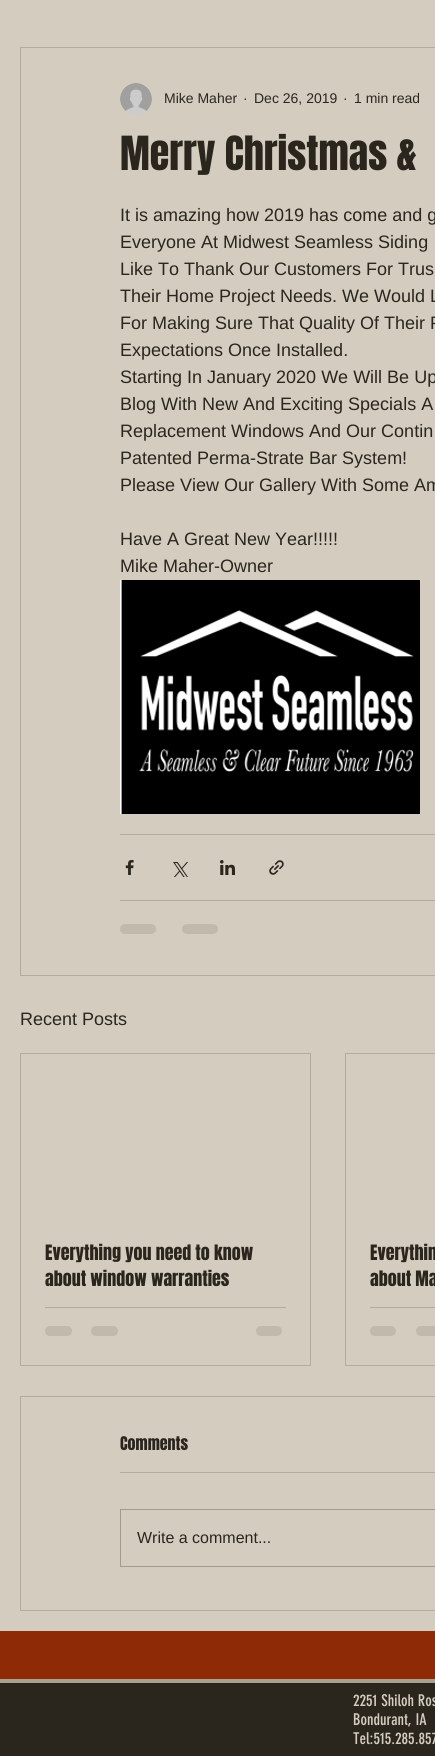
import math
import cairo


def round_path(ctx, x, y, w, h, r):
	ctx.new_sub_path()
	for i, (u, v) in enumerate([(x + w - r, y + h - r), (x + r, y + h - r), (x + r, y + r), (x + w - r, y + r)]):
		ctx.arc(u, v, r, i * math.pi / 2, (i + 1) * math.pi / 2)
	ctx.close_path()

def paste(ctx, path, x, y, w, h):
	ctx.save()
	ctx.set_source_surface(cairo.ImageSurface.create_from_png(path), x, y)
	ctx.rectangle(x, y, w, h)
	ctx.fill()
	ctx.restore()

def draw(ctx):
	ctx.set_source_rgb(0.557, 0.169, 0.027)
	ctx.paint()
	ctx.set_source_rgb(0.831, 0.804, 0.749)
	ctx.rectangle(0, 0, 435, 1631)
	ctx.fill()
	ctx.rectangle(20.5, 47.5, 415, 928)
	ctx.set_source_rgb(0.702, 0.671, 0.612)
	ctx.set_line_width(1)
	ctx.stroke()
	paste(ctx, 'media/1.png', 120, 83, 32, 32)
	ctx.select_font_face('Liberation Sans')
	ctx.set_font_size(14)
	ctx.set_source_rgb(0.165, 0.149, 0.118)
	for x, y, s in [
		(164, 103, 'Mike Maher'),
		(243, 103, '·'),
		(254, 103, 'Dec 26, 2019'),
		(343, 103, '·'),
		(354, 103, '1 min read'),
	]:
		ctx.move_to(x, y)
		ctx.show_text(s)
	ctx.select_font_face('Anton')
	ctx.set_font_size(40)
	ctx.move_to(120, 170)
	ctx.show_text('Merry Christmas &')
	ctx.select_font_face('Liberation Sans')
	ctx.set_font_size(18)
	for x, y, s in [
		(120, 221, 'It is amazing how 2019 has come and g'),
		(120, 248, 'Everyone At Midwest Seamless Siding'),
		(120, 275, 'Like To Thank Our Customers For Trus'),
		(120, 302, 'Their Home Project Needs. We Would L'),
		(120, 329, 'For Making Sure That Quality Of Their P'),
		(120, 356, 'Expectations Once Installed.'),
		(120, 383, 'Starting In January 2020 We Will Be Up'),
		(120, 410, 'Blog With New And Exciting Specials A'),
		(120, 437, 'Replacement Windows And Our Contin'),
		(120, 464, 'Patented Perma-Strate Bar System!'),
		(120, 491, 'Please View Our Gallery With Some Am'),
		(120, 545, 'Have A Great New Year!!!!!'),
		(120, 572, 'Mike Maher-Owner'),
	]:
		ctx.move_to(x, y)
		ctx.show_text(s)
	paste(ctx, 'media/2.png', 120, 580, 300, 234)
	ctx.set_source_rgb(0.698, 0.675, 0.624)
	ctx.rectangle(120, 834, 315, 1)
	ctx.fill()
	paste(ctx, 'media/3.png', 125, 860, 9, 15)
	paste(ctx, 'media/4.png', 173, 862, 15, 15)
	paste(ctx, 'media/5.png', 220, 860, 15, 15)
	paste(ctx, 'media/6.png', 269, 860, 15, 15)
	ctx.rectangle(120, 900, 315, 1)
	ctx.fill()
	ctx.set_source_rgb(0.753, 0.725, 0.675)
	round_path(ctx, 120, 924, 36, 10, 5)
	ctx.fill()
	round_path(ctx, 182, 924, 36, 10, 5)
	ctx.fill()
	ctx.set_source_rgb(0.165, 0.149, 0.118)
	ctx.move_to(20, 1025)
	ctx.show_text('Recent Posts')
	ctx.rectangle(20.5, 1053.5, 290, 312)
	ctx.set_source_rgb(0.702, 0.671, 0.612)
	ctx.stroke()
	ctx.select_font_face('Anton')
	ctx.set_source_rgb(0.165, 0.149, 0.118)
	ctx.move_to(45, 1260)
	ctx.show_text('Everything you need to know')
	ctx.move_to(45, 1286)
	ctx.show_text('about window warranties')
	ctx.set_source_rgb(0.698, 0.675, 0.624)
	ctx.rectangle(45, 1307, 241, 1)
	ctx.fill()
	ctx.set_source_rgb(0.753, 0.725, 0.675)
	round_path(ctx, 45, 1326, 27, 10, 5)
	ctx.fill()
	round_path(ctx, 91, 1326, 27, 10, 5)
	ctx.fill()
	round_path(ctx, 256, 1326, 26, 10, 5)
	ctx.fill()
	ctx.rectangle(345.5, 1053.5, 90, 312)
	ctx.set_source_rgb(0.702, 0.671, 0.612)
	ctx.stroke()
	ctx.set_source_rgb(0.165, 0.149, 0.118)
	ctx.move_to(370, 1260)
	ctx.show_text('Everythin')
	ctx.move_to(370, 1286)
	ctx.show_text('about Ma')
	ctx.set_source_rgb(0.698, 0.675, 0.624)
	ctx.rectangle(370, 1307, 65, 1)
	ctx.fill()
	ctx.set_source_rgb(0.753, 0.725, 0.675)
	round_path(ctx, 370, 1326, 26, 10, 5)
	ctx.fill()
	round_path(ctx, 416, 1326, 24, 10, 5)
	ctx.fill()
	ctx.rectangle(20.5, 1396.5, 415, 214)
	ctx.set_source_rgb(0.702, 0.671, 0.612)
	ctx.stroke()
	ctx.set_font_size(16)
	ctx.set_source_rgb(0.165, 0.149, 0.118)
	ctx.move_to(120, 1450)
	ctx.show_text('Comments')
	ctx.set_source_rgb(0.698, 0.675, 0.624)
	ctx.rectangle(120, 1472, 315, 1)
	ctx.fill()
	ctx.rectangle(120.5, 1509.5, 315, 57)
	ctx.set_source_rgb(0.631, 0.608, 0.561)
	ctx.stroke()
	ctx.select_font_face('Liberation Sans')
	ctx.set_source_rgb(0.165, 0.149, 0.118)
	ctx.move_to(137, 1543)
	ctx.show_text('Write a comment...')
	ctx.rectangle(0, 1683, 435, 73)
	ctx.fill()
	ctx.set_source_rgb(0.659, 0.627, 0.565)
	ctx.rectangle(0, 1679, 435, 4)
	ctx.fill()
	ctx.select_font_face('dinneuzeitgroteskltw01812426')
	ctx.set_source_rgb(0.831, 0.804, 0.749)
	for x, y, s in [
		(353, 1706, '2251 Shiloh Ros'),
		(353, 1725, 'Bondurant, IA'),
		(353, 1744, 'Tel:515.285.857'),
	]:
		ctx.move_to(x, y)
		ctx.show_text(s)


surface = cairo.ImageSurface(cairo.FORMAT_RGB24, 435, 1756)
ctx = cairo.Context(surface)
options = cairo.FontOptions()
options.set_hint_metrics(cairo.HINT_METRICS_OFF)
options.set_hint_style(cairo.HINT_STYLE_NONE)
ctx.set_font_options(options)
ctx.set_miter_limit(4)
draw(ctx)
surface.write_to_png('image.png')
